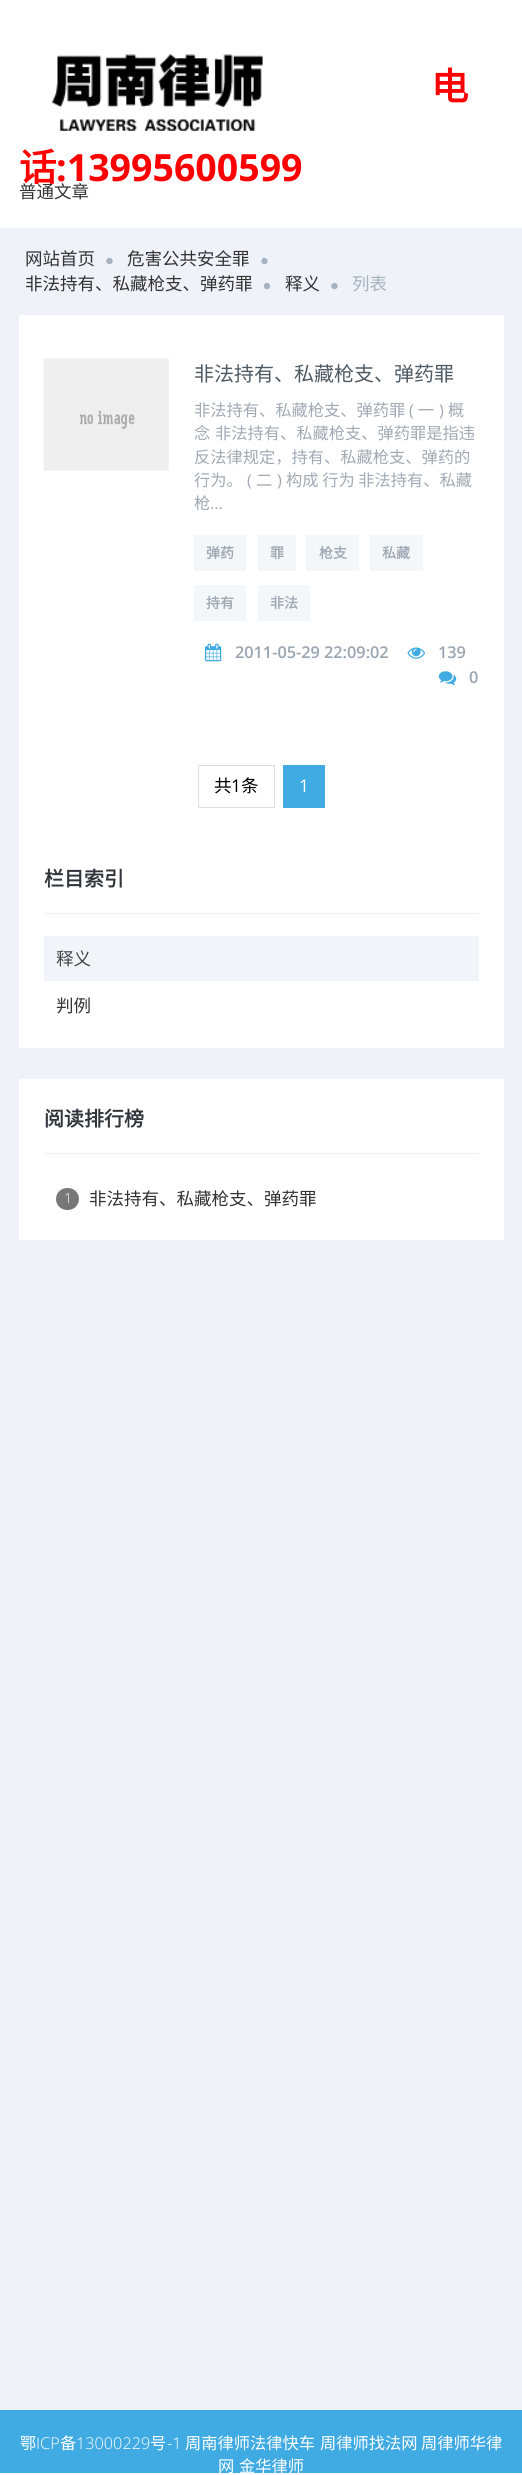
import math
import cairo


def write_spaced(ctx, x, y, s, letter, word):
	ctx.move_to(x, y)
	for ch in s:
		ctx.show_text(ch)
		ctx.rel_move_to(letter + word * (ch == ' '), 0)

def round_path(ctx, x, y, w, h, r):
	ctx.new_sub_path()
	for i, (u, v) in enumerate([(x + w - r, y + h - r), (x + r, y + h - r), (x + r, y + r), (x + w - r, y + r)]):
		ctx.arc(u, v, r, i * math.pi / 2, (i + 1) * math.pi / 2)
	ctx.close_path()

def paste(ctx, path, x, y, w, h):
	ctx.save()
	ctx.set_source_surface(cairo.ImageSurface.create_from_png(path), x, y)
	ctx.rectangle(x, y, w, h)
	ctx.fill()
	ctx.restore()

def draw(ctx):
	ctx.set_source_rgb(1, 1, 1)
	ctx.paint()
	paste(ctx, 'media/1.png', 51, 54, 212, 77)
	ctx.select_font_face('Noto Sans CJK SC', cairo.FONT_SLANT_NORMAL, cairo.FONT_WEIGHT_BOLD)
	ctx.set_font_size(37.5)
	ctx.set_source_rgb(1, 0, 0)
	ctx.move_to(431, 100)
	ctx.show_text('电')
	ctx.move_to(19, 181)
	ctx.show_text('话')
	ctx.select_font_face('Open Sans', cairo.FONT_SLANT_NORMAL, cairo.FONT_WEIGHT_BOLD)
	ctx.move_to(56, 181)
	ctx.show_text(':13995600599')
	ctx.set_source_rgb(0.937, 0.953, 0.973)
	ctx.rectangle(0, 228, 522, 2182)
	ctx.fill()
	ctx.select_font_face('Noto Sans CJK SC')
	ctx.set_font_size(17.5)
	ctx.set_source_rgb(0.2, 0.2, 0.2)
	ctx.move_to(19, 198)
	ctx.show_text('普通文章')
	ctx.move_to(25, 265)
	ctx.show_text('网站首页')
	paste(ctx, 'media/2.png', 106, 257, 7, 8)
	ctx.move_to(127, 265)
	ctx.show_text('危害公共安全罪')
	paste(ctx, 'media/2.png', 261, 257, 7, 8)
	ctx.move_to(25, 290)
	ctx.show_text('非法持有、私藏枪支、弹药罪')
	paste(ctx, 'media/3.png', 263, 282, 8, 8)
	ctx.move_to(285, 290)
	ctx.show_text('释义')
	paste(ctx, 'media/2.png', 331, 282, 7, 8)
	ctx.set_source_rgb(0.655, 0.698, 0.753)
	ctx.move_to(352, 290)
	ctx.show_text('列表')
	ctx.set_source_rgb(1, 1, 1)
	ctx.rectangle(19, 315, 485, 733)
	ctx.fill()
	paste(ctx, 'media/4.png', 43, 358, 126, 113)
	ctx.set_font_size(20)
	ctx.set_source_rgb(0.306, 0.353, 0.392)
	ctx.move_to(194, 381)
	ctx.show_text('非法持有、私藏枪支、弹药罪')
	ctx.set_font_size(16.25)
	ctx.set_source_rgb(0.627, 0.663, 0.706)
	ctx.move_to(194, 416)
	ctx.show_text('非法持有、私藏枪支、弹药罪')
	ctx.select_font_face('Open Sans')
	ctx.move_to(409, 416)
	ctx.show_text('(')
	ctx.select_font_face('Noto Sans CJK SC')
	ctx.move_to(418, 416)
	ctx.show_text('一')
	ctx.select_font_face('Open Sans')
	ctx.move_to(439, 416)
	ctx.show_text(')')
	ctx.select_font_face('Noto Sans CJK SC')
	ctx.move_to(448, 416)
	ctx.show_text('概')
	write_spaced(ctx, 194, 439, '念 非法持有、私藏枪支、弹药罪是指违', 0, 1)
	ctx.move_to(194, 463)
	ctx.show_text('反法律规定，持有、私藏枪支、弹药的')
	ctx.move_to(194, 486)
	ctx.show_text('行为。')
	ctx.select_font_face('Open Sans')
	ctx.move_to(247, 486)
	ctx.show_text('(')
	ctx.select_font_face('Noto Sans CJK SC')
	ctx.move_to(256, 486)
	ctx.show_text('二')
	ctx.select_font_face('Open Sans')
	ctx.move_to(277, 486)
	ctx.show_text(')')
	ctx.select_font_face('Noto Sans CJK SC')
	ctx.move_to(286, 486)
	ctx.show_text('构成 行为 非法持有、私藏')
	ctx.move_to(194, 509)
	ctx.show_text('枪')
	ctx.select_font_face('Open Sans')
	ctx.move_to(210, 509)
	ctx.show_text('...')
	ctx.set_source_rgb(0.957, 0.965, 0.973)
	ctx.rectangle(194, 535, 52, 36)
	ctx.fill()
	ctx.select_font_face('Noto Sans CJK SC', cairo.FONT_SLANT_NORMAL, cairo.FONT_WEIGHT_BOLD)
	ctx.set_font_size(14)
	ctx.set_source_rgb(0.627, 0.663, 0.706)
	ctx.move_to(206, 558)
	ctx.show_text('弹药')
	ctx.set_source_rgb(0.957, 0.965, 0.973)
	ctx.rectangle(258, 535, 38, 36)
	ctx.fill()
	ctx.set_source_rgb(0.627, 0.663, 0.706)
	ctx.move_to(270, 558)
	ctx.show_text('罪')
	ctx.set_source_rgb(0.957, 0.965, 0.973)
	ctx.rectangle(306, 535, 53, 36)
	ctx.fill()
	ctx.set_source_rgb(0.627, 0.663, 0.706)
	ctx.move_to(319, 558)
	ctx.show_text('枪支')
	ctx.set_source_rgb(0.957, 0.965, 0.973)
	ctx.rectangle(370, 535, 53, 36)
	ctx.fill()
	ctx.set_source_rgb(0.627, 0.663, 0.706)
	ctx.move_to(382, 558)
	ctx.show_text('私藏')
	ctx.set_source_rgb(0.957, 0.965, 0.973)
	ctx.rectangle(194, 585, 52, 36)
	ctx.fill()
	ctx.set_source_rgb(0.627, 0.663, 0.706)
	ctx.move_to(206, 608)
	ctx.show_text('持有')
	ctx.set_source_rgb(0.957, 0.965, 0.973)
	ctx.rectangle(258, 585, 52, 36)
	ctx.fill()
	ctx.set_source_rgb(0.627, 0.663, 0.706)
	ctx.move_to(270, 608)
	ctx.show_text('非法')
	paste(ctx, 'media/5.png', 205, 643, 17, 19)
	ctx.select_font_face('Open Sans SemiBold')
	ctx.set_font_size(16.25)
	ctx.set_source_rgb(0.604, 0.647, 0.698)
	ctx.move_to(235, 658)
	ctx.show_text('2011-05-29 22:09:02')
	paste(ctx, 'media/6.png', 407, 647, 18, 12)
	ctx.move_to(438, 658)
	ctx.show_text('139')
	paste(ctx, 'media/7.png', 438, 671, 19, 14)
	ctx.move_to(469, 683)
	ctx.show_text('0')
	ctx.rectangle(198.5, 765.5, 76, 42)
	ctx.set_source_rgb(0.867, 0.867, 0.867)
	ctx.set_line_width(1)
	ctx.stroke()
	ctx.select_font_face('Noto Sans CJK SC')
	ctx.set_font_size(17.5)
	ctx.set_source_rgb(0, 0, 0)
	ctx.move_to(214, 792)
	ctx.show_text('共')
	ctx.select_font_face('Open Sans')
	ctx.move_to(231, 792)
	ctx.show_text('1')
	ctx.select_font_face('Noto Sans CJK SC')
	ctx.move_to(241, 792)
	ctx.show_text('条')
	ctx.set_source_rgb(0.251, 0.667, 0.886)
	ctx.rectangle(283, 765, 42, 43)
	ctx.fill()
	ctx.select_font_face('Open Sans')
	ctx.set_source_rgb(1, 1, 1)
	ctx.move_to(299, 792)
	ctx.show_text('1')
	ctx.set_source_rgb(0.933, 0.933, 0.933)
	ctx.rectangle(44, 913, 435, 1)
	ctx.fill()
	ctx.select_font_face('Noto Sans CJK SC', cairo.FONT_SLANT_NORMAL, cairo.FONT_WEIGHT_BOLD)
	ctx.set_font_size(20)
	ctx.set_source_rgb(0.184, 0.208, 0.231)
	ctx.move_to(44, 886)
	ctx.show_text('栏目索引')
	ctx.set_source_rgb(0.945, 0.957, 0.969)
	ctx.rectangle(44, 936, 435, 45)
	ctx.fill()
	ctx.select_font_face('Noto Sans CJK SC')
	ctx.set_font_size(17.5)
	ctx.set_source_rgb(0.247, 0.267, 0.29)
	ctx.move_to(56, 965)
	ctx.show_text('释义')
	ctx.set_source_rgb(0.2, 0.2, 0.2)
	ctx.move_to(56, 1012)
	ctx.show_text('判例')
	ctx.set_source_rgb(1, 1, 1)
	ctx.rectangle(19, 1079, 485, 161)
	ctx.fill()
	ctx.set_source_rgb(0.933, 0.933, 0.933)
	ctx.rectangle(44, 1153, 435, 1)
	ctx.fill()
	ctx.select_font_face('Noto Sans CJK SC', cairo.FONT_SLANT_NORMAL, cairo.FONT_WEIGHT_BOLD)
	ctx.set_font_size(20)
	ctx.set_source_rgb(0.184, 0.208, 0.231)
	ctx.move_to(44, 1126)
	ctx.show_text('阅读排行榜')
	ctx.set_source_rgb(0.467, 0.467, 0.467)
	round_path(ctx, 56, 1188, 23, 22, 11)
	ctx.fill()
	ctx.select_font_face('Open Sans Light')
	ctx.set_font_size(14)
	ctx.set_source_rgb(1, 1, 1)
	ctx.move_to(64, 1203)
	ctx.show_text('1')
	ctx.select_font_face('Noto Sans CJK SC')
	ctx.set_font_size(17.5)
	ctx.set_source_rgb(0.2, 0.2, 0.2)
	ctx.move_to(89, 1205)
	ctx.show_text('非法持有、私藏枪支、弹药罪')
	ctx.set_source_rgb(0.251, 0.667, 0.886)
	ctx.rectangle(0, 2410, 522, 63)
	ctx.fill()
	ctx.set_font_size(16.25)
	ctx.set_source_rgb(1, 1, 1)
	ctx.move_to(20, 2449)
	ctx.show_text('鄂')
	ctx.select_font_face('Open Sans Light')
	ctx.move_to(36, 2449)
	ctx.show_text('ICP')
	ctx.select_font_face('Noto Sans CJK SC')
	ctx.move_to(60, 2449)
	ctx.show_text('备')
	ctx.select_font_face('Open Sans Light')
	ctx.move_to(76, 2449)
	ctx.show_text('13000229')
	ctx.select_font_face('Noto Sans CJK SC')
	ctx.move_to(150, 2449)
	ctx.show_text('号')
	ctx.select_font_face('Open Sans Light')
	ctx.move_to(167, 2449)
	ctx.show_text('-1')
	ctx.select_font_face('Noto Sans CJK SC')
	for x, y, s in [
		(185, 2449, '周南律师法律快车'),
		(320, 2449, '周律师找法网'),
		(421, 2449, '周律师华律'),
		(218, 2472, '网'),
		(239, 2472, '金华律师'),
	]:
		ctx.move_to(x, y)
		ctx.show_text(s)


surface = cairo.ImageSurface(cairo.FORMAT_RGB24, 522, 2475)
ctx = cairo.Context(surface)
options = cairo.FontOptions()
options.set_hint_metrics(cairo.HINT_METRICS_OFF)
options.set_hint_style(cairo.HINT_STYLE_NONE)
ctx.set_font_options(options)
ctx.set_miter_limit(4)
draw(ctx)
surface.write_to_png('image.png')
